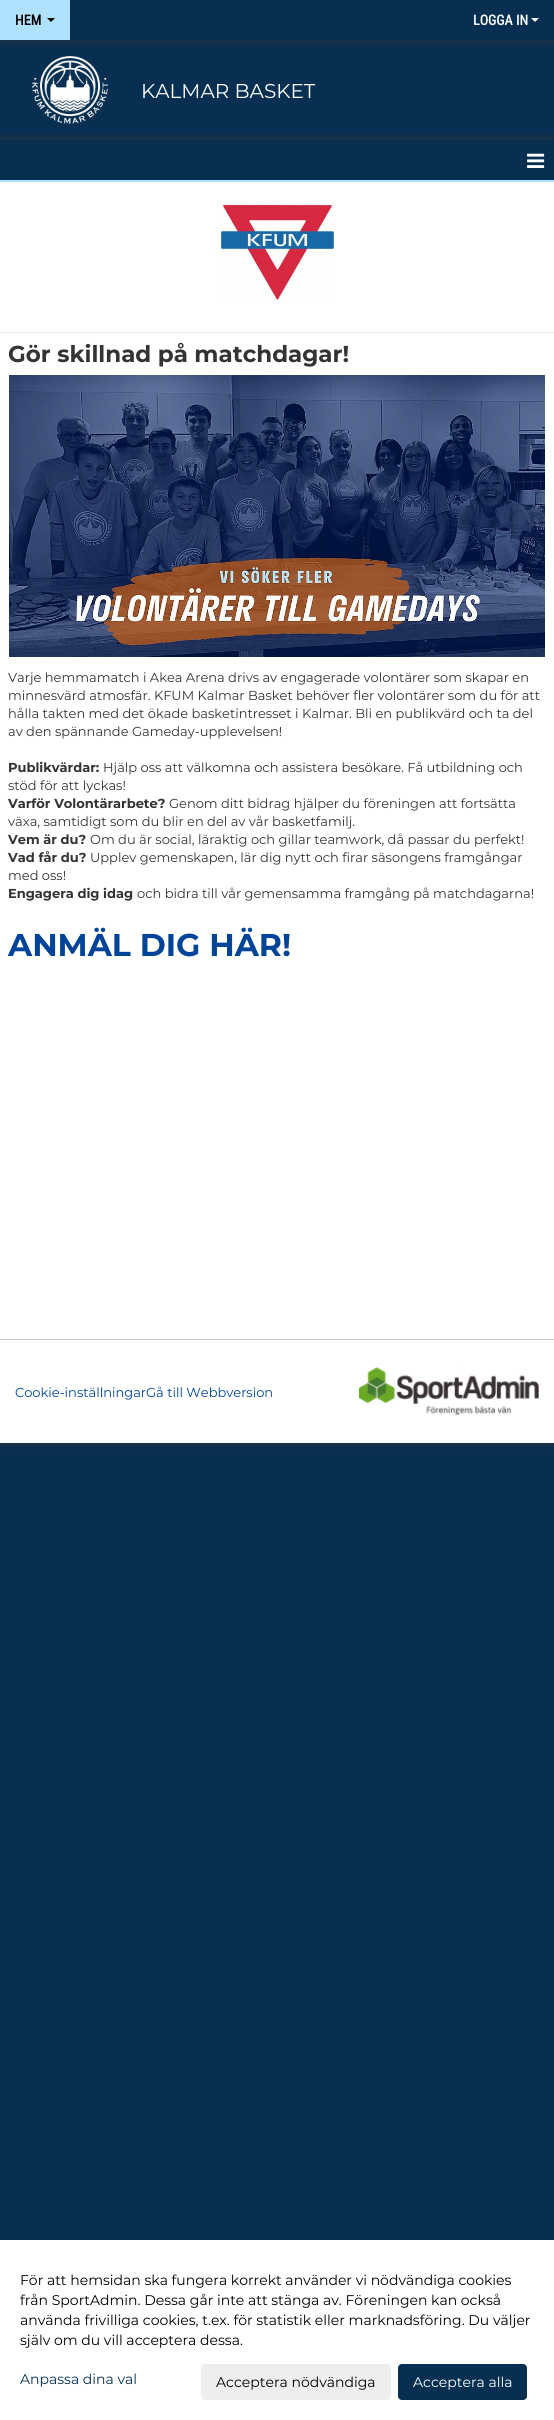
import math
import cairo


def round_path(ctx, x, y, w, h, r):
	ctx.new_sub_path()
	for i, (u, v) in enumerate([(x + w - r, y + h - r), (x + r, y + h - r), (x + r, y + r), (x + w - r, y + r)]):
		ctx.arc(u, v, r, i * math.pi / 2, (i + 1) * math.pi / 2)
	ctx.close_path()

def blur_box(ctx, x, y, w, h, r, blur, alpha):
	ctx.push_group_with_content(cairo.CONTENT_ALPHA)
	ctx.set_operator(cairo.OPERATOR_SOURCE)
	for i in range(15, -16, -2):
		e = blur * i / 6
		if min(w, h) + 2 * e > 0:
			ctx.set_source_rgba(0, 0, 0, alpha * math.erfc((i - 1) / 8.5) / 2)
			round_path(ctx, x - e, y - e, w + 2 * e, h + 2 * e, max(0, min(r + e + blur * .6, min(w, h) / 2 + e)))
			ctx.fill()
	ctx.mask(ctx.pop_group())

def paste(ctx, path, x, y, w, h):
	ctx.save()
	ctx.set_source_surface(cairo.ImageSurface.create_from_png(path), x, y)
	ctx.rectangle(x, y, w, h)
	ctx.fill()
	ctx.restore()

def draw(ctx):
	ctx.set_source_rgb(0.024, 0.184, 0.322)
	ctx.paint()
	ctx.save()
	ctx.rectangle(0, 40, 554, 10)
	ctx.clip()
	ctx.set_source_rgb(0.2, 0.2, 0.2)
	blur_box(ctx, 0, 0, 554, 40, 0, 5, 1)
	ctx.restore()
	ctx.set_source_rgb(0.69, 0.886, 1)
	ctx.rectangle(0, 0, 70, 40)
	ctx.fill()
	ctx.select_font_face('Roboto Condensed', cairo.FONT_SLANT_NORMAL, cairo.FONT_WEIGHT_BOLD)
	ctx.set_font_size(14)
	ctx.set_source_rgb(0, 0, 0)
	ctx.move_to(15, 25)
	ctx.show_text('HEM')
	ctx.new_path()
	ctx.move_to(47, 18)
	ctx.line_to(55, 18)
	ctx.line_to(51, 22)
	ctx.close_path()
	ctx.fill()
	ctx.set_source_rgb(1, 1, 1)
	ctx.move_to(473, 25)
	ctx.show_text('LOGGA IN')
	ctx.new_path()
	ctx.move_to(531, 18)
	ctx.line_to(539, 18)
	ctx.line_to(535, 22)
	ctx.close_path()
	ctx.fill()
	paste(ctx, 'media/1.png', 32, 56, 76, 68)
	ctx.select_font_face('Montserrat')
	ctx.set_font_size(20)
	ctx.move_to(141, 98)
	ctx.show_text('KALMAR BASKET')
	ctx.set_source_rgb(0.2, 0.2, 0.2)
	blur_box(ctx, 0, 140, 554, 1303, 0, 5, 1)
	ctx.set_source_rgb(1, 1, 1)
	ctx.rectangle(0, 182, 554, 1157)
	ctx.fill()
	ctx.set_source_rgb(0.024, 0.184, 0.322)
	ctx.rectangle(0, 140, 554, 40)
	ctx.fill()
	ctx.set_source_rgb(0.69, 0.886, 1)
	ctx.rectangle(0, 180, 554, 2)
	ctx.fill()
	paste(ctx, 'media/2.png', 527, 153, 18, 15)
	paste(ctx, 'media/3.png', 216, 200, 120, 104)
	ctx.set_source_rgb(0.933, 0.933, 0.933)
	ctx.rectangle(0, 332, 554, 1)
	ctx.fill()
	ctx.select_font_face('Montserrat', cairo.FONT_SLANT_NORMAL, cairo.FONT_WEIGHT_BOLD)
	ctx.set_font_size(23)
	ctx.set_source_rgb(0.2, 0.2, 0.2)
	ctx.move_to(8, 362)
	ctx.show_text('Gör skillnad på matchdagar!')
	paste(ctx, 'media/4.png', 9, 375, 536, 282)
	ctx.select_font_face('Montserrat')
	ctx.set_font_size(13)
	for x, y, s in [
		(8, 682, 'Varje hemmamatch i Akea Arena drivs av engagerade volontärer som skapar en'),
		(8, 700, 'minnesvärd atmosfär. KFUM Kalmar Basket behöver fler volontärer som du för att'),
		(8, 718, 'hålla takten med det ökade basketintresset i Kalmar. Bli en publikvärd och ta del'),
		(8, 736, 'av den spännande Gameday-upplevelsen!'),
	]:
		ctx.move_to(x, y)
		ctx.show_text(s)
	ctx.select_font_face('Montserrat', cairo.FONT_SLANT_NORMAL, cairo.FONT_WEIGHT_BOLD)
	ctx.move_to(8, 772)
	ctx.show_text('Publikvärdar:')
	ctx.select_font_face('Montserrat')
	ctx.move_to(103, 772)
	ctx.show_text('Hjälp oss att välkomna och assistera besökare. Få utbildning och')
	ctx.move_to(8, 790)
	ctx.show_text('stöd för att lyckas!')
	ctx.select_font_face('Montserrat', cairo.FONT_SLANT_NORMAL, cairo.FONT_WEIGHT_BOLD)
	ctx.move_to(8, 808)
	ctx.show_text('Varför Volontärarbete?')
	ctx.select_font_face('Montserrat')
	ctx.move_to(169, 808)
	ctx.show_text('Genom ditt bidrag hjälper du föreningen att fortsätta')
	ctx.move_to(8, 826)
	ctx.show_text('växa, samtidigt som du blir en del av vår basketfamilj.')
	ctx.select_font_face('Montserrat', cairo.FONT_SLANT_NORMAL, cairo.FONT_WEIGHT_BOLD)
	ctx.move_to(8, 844)
	ctx.show_text('Vem är du?')
	ctx.select_font_face('Montserrat')
	ctx.move_to(90, 844)
	ctx.show_text('Om du är social, läraktig och gillar teamwork, då passar du perfekt!')
	ctx.select_font_face('Montserrat', cairo.FONT_SLANT_NORMAL, cairo.FONT_WEIGHT_BOLD)
	ctx.move_to(8, 862)
	ctx.show_text('Vad får du?')
	ctx.select_font_face('Montserrat')
	ctx.move_to(90, 862)
	ctx.show_text('Upplev gemenskapen, lär dig nytt och firar säsongens framgångar')
	ctx.move_to(8, 880)
	ctx.show_text('med oss!')
	ctx.select_font_face('Montserrat', cairo.FONT_SLANT_NORMAL, cairo.FONT_WEIGHT_BOLD)
	ctx.move_to(8, 898)
	ctx.show_text('Engagera dig idag')
	ctx.select_font_face('Montserrat')
	ctx.move_to(137, 898)
	ctx.show_text('och bidra till vår gemensamma framgång på matchdagarna!')
	ctx.select_font_face('Montserrat', cairo.FONT_SLANT_NORMAL, cairo.FONT_WEIGHT_BOLD)
	ctx.set_font_size(31.5)
	ctx.set_source_rgb(0, 0.267, 0.6)
	ctx.move_to(8, 956)
	ctx.show_text('ANMÄL DIG HÄR!')
	ctx.set_source_rgb(1, 1, 1)
	ctx.rectangle(0, 1340, 554, 103)
	ctx.fill()
	ctx.set_source_rgb(0.8, 0.8, 0.8)
	ctx.rectangle(0, 1339, 554, 1)
	ctx.fill()
	ctx.select_font_face('Montserrat')
	ctx.set_font_size(13)
	ctx.set_source_rgb(0, 0.267, 0.6)
	ctx.move_to(15, 1397)
	ctx.show_text('Cookie-inställningarGå till Webbversion')
	paste(ctx, 'media/5.png', 359, 1366, 180, 50)
	ctx.set_source_rgb(1, 1, 1)
	ctx.rectangle(0, 2240, 554, 180)
	ctx.fill()
	ctx.set_font_size(14)
	ctx.set_source_rgb(0, 0, 0)
	for x, y, s in [
		(20, 2285, 'För att hemsidan ska fungera korrekt använder vi nödvändiga cookies'),
		(20, 2305, 'från SportAdmin. Dessa går inte att stänga av. Föreningen kan också'),
		(20, 2325, 'använda frivilliga cookies, t.ex. för statistik eller marknadsföring. Du väljer'),
		(20, 2345, 'själv om du vill acceptera dessa.'),
	]:
		ctx.move_to(x, y)
		ctx.show_text(s)
	ctx.set_source_rgb(0.024, 0.184, 0.322)
	ctx.move_to(20, 2384)
	ctx.show_text('Anpassa dina val')
	ctx.set_source_rgb(0.933, 0.933, 0.933)
	round_path(ctx, 201, 2364, 190, 36, 4)
	ctx.fill()
	ctx.set_source_rgb(0, 0, 0)
	ctx.move_to(216, 2387)
	ctx.show_text('Acceptera nödvändiga')
	ctx.set_source_rgb(0.024, 0.184, 0.322)
	round_path(ctx, 398, 2364, 129, 36, 4)
	ctx.fill()
	ctx.set_source_rgb(1, 1, 1)
	ctx.move_to(413, 2387)
	ctx.show_text('Acceptera alla')


surface = cairo.ImageSurface(cairo.FORMAT_RGB24, 554, 2420)
ctx = cairo.Context(surface)
options = cairo.FontOptions()
options.set_hint_metrics(cairo.HINT_METRICS_OFF)
options.set_hint_style(cairo.HINT_STYLE_NONE)
ctx.set_font_options(options)
ctx.set_miter_limit(4)
draw(ctx)
surface.write_to_png('image.png')
